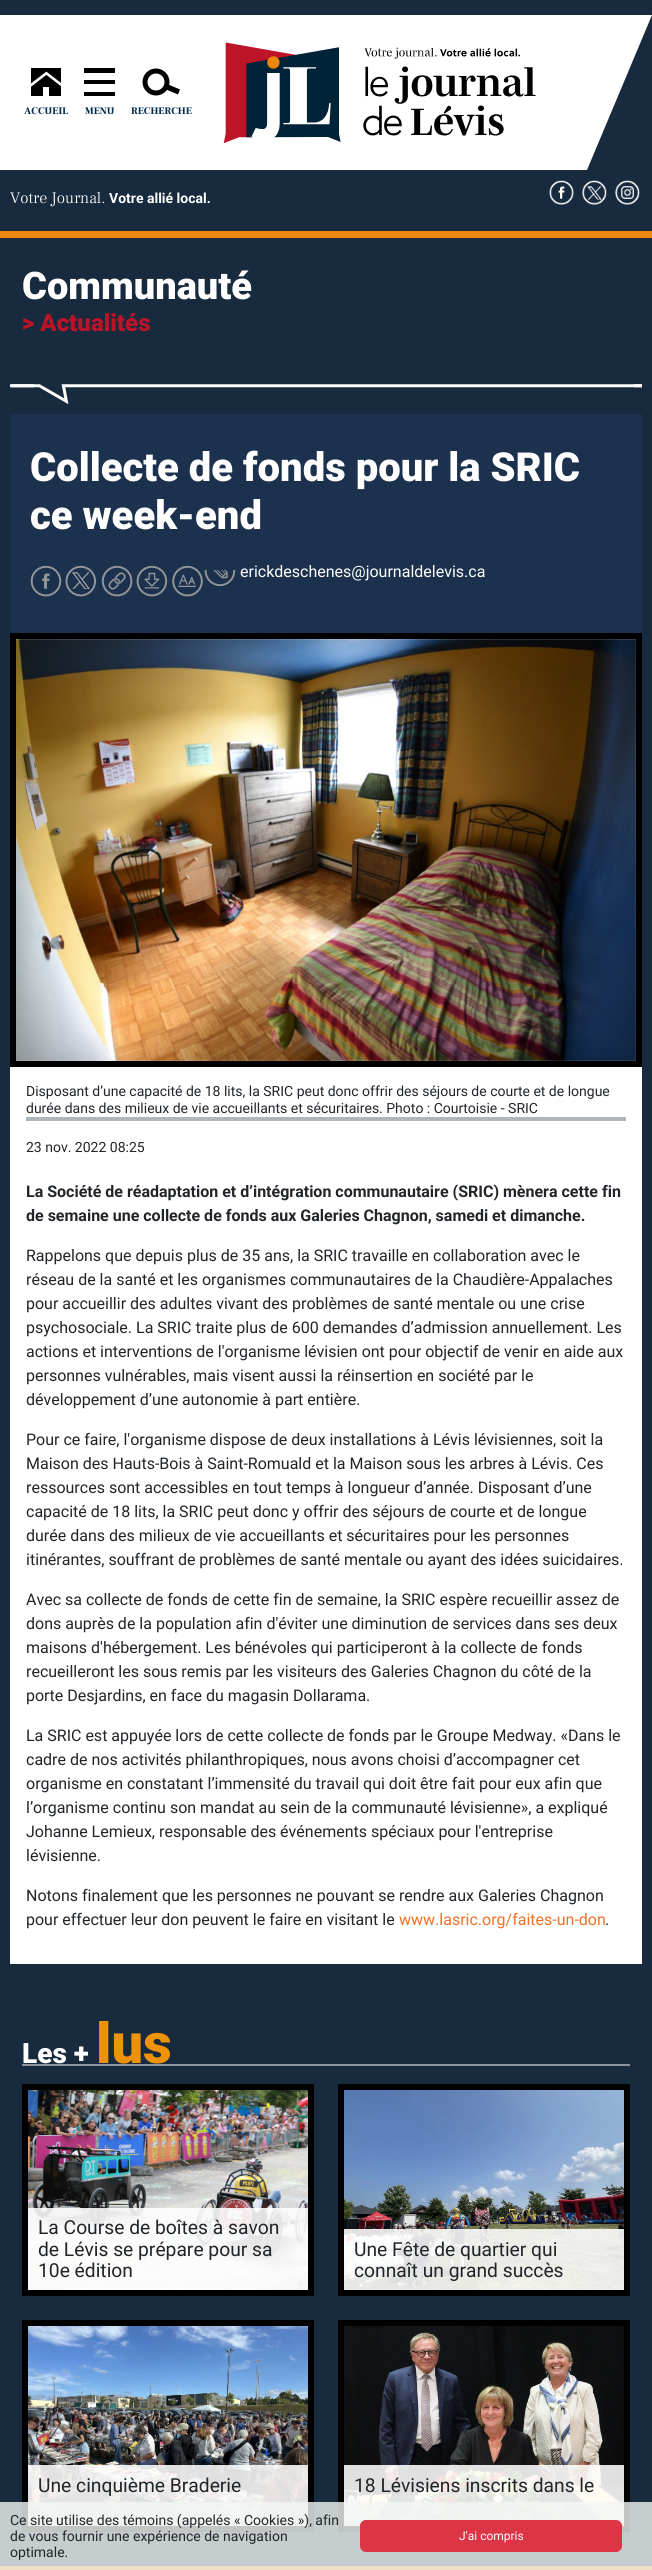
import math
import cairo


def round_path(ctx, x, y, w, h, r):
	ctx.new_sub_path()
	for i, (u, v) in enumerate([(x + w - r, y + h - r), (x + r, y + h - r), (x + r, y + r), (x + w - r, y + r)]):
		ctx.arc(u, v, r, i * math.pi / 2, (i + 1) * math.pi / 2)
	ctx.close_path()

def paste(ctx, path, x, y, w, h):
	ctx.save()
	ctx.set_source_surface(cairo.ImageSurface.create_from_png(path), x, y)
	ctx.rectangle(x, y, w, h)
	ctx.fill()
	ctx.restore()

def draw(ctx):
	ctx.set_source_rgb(0.094, 0.165, 0.243)
	ctx.paint()
	ctx.set_source_rgb(0.922, 0.529, 0.059)
	ctx.rectangle(0, 231, 652, 7)
	ctx.fill()
	ctx.set_source_rgb(1, 1, 1)
	ctx.new_path()
	ctx.move_to(0, 15)
	ctx.line_to(0, 170)
	ctx.line_to(587, 170)
	ctx.line_to(652, 15)
	ctx.close_path()
	ctx.fill()
	paste(ctx, 'media/1.png', 31, 68, 30, 28)
	ctx.select_font_face('Frank Ruhl Libre ExtraBold')
	ctx.set_font_size(10)
	ctx.set_source_rgb(0, 0.169, 0.314)
	ctx.move_to(24, 114)
	ctx.show_text('ACCUEIL')
	ctx.set_source_rgb(0, 0, 0)
	ctx.rectangle(84, 68, 31, 5)
	ctx.rectangle(84, 80, 31, 4)
	ctx.rectangle(84, 92, 31, 4)
	ctx.fill()
	ctx.set_source_rgb(0, 0.169, 0.314)
	ctx.move_to(85, 114)
	ctx.show_text('MENU')
	ctx.set_source_rgb(0, 0, 0)
	ctx.new_path()
	ctx.move_to(159, 86.5)
	ctx.line_to(161, 81.5)
	ctx.line_to(180, 89.5)
	ctx.line_to(178, 94.5)
	ctx.close_path()
	ctx.fill()
	ctx.arc(156, 82, 13.5, 0, 2 * math.pi)
	ctx.fill()
	ctx.set_source_rgb(1, 1, 1)
	ctx.arc(156, 82, 8.5, 0, 2 * math.pi)
	ctx.fill()
	ctx.set_source_rgb(0, 0.169, 0.314)
	ctx.move_to(131, 114)
	ctx.show_text('RECHERCHE')
	paste(ctx, 'media/2.png', 223, 42, 313, 102)
	ctx.select_font_face('Frank Ruhl Libre Light')
	ctx.set_font_size(16)
	ctx.set_source_rgb(1, 1, 1)
	ctx.move_to(10, 203)
	ctx.show_text('Votre Journal.')
	ctx.select_font_face('Roboto', cairo.FONT_SLANT_NORMAL, cairo.FONT_WEIGHT_BOLD)
	ctx.set_font_size(14)
	ctx.move_to(109, 203)
	ctx.show_text('Votre allié local.')
	paste(ctx, 'media/3.png', 549, 180, 25, 25)
	paste(ctx, 'media/4.png', 582, 180, 25, 25)
	paste(ctx, 'media/5.png', 615, 180, 25, 25)
	ctx.select_font_face('Roboto Black')
	ctx.set_font_size(38)
	ctx.move_to(22, 299)
	ctx.show_text('Communauté')
	ctx.set_font_size(24)
	ctx.set_source_rgb(0.741, 0.078, 0.153)
	ctx.move_to(22, 331)
	ctx.show_text('> Actualités')
	paste(ctx, 'media/6.png', 10, 384, 632, 21)
	ctx.set_source_rgb(0.106, 0.192, 0.302)
	ctx.rectangle(10, 414, 632, 219)
	ctx.fill()
	ctx.set_font_size(40)
	ctx.set_source_rgb(1, 1, 1)
	ctx.move_to(30, 481)
	ctx.show_text('Collecte de fonds pour la SRIC')
	ctx.move_to(30, 529)
	ctx.show_text('ce week-end')
	paste(ctx, 'media/7.png', 30, 565, 32, 32)
	paste(ctx, 'media/8.png', 65, 565, 31, 32)
	paste(ctx, 'media/9.png', 101, 565, 32, 32)
	paste(ctx, 'media/10.png', 136, 565, 32, 32)
	paste(ctx, 'media/11.png', 172, 565, 31, 32)
	paste(ctx, 'media/12.png', 204, 570, 32, 17)
	ctx.select_font_face('Roboto')
	ctx.set_font_size(16)
	ctx.move_to(240, 577)
	ctx.show_text('erickdeschenes@journaldelevis.ca')
	ctx.rectangle(10, 639, 632, 1325)
	ctx.fill()
	ctx.rectangle(13, 636, 626, 428)
	ctx.set_source_rgb(0, 0, 0)
	ctx.set_line_width(6)
	ctx.stroke()
	paste(ctx, 'media/13.png', 16, 639, 620, 422)
	ctx.set_source_rgb(0.678, 0.71, 0.741)
	ctx.rectangle(26, 1117, 600, 4)
	ctx.fill()
	ctx.set_font_size(14)
	ctx.set_source_rgb(0.129, 0.145, 0.161)
	for x, y, s in [
		(26, 1096, 'Disposant d’une capacité de 18 lits, la SRIC peut donc offrir des séjours de courte et de longue'),
		(26, 1113, 'durée dans des milieux de vie accueillants et sécuritaires. Photo : Courtoisie - SRIC'),
		(26, 1152, '23 nov. 2022 08:25'),
	]:
		ctx.move_to(x, y)
		ctx.show_text(s)
	ctx.select_font_face('Roboto', cairo.FONT_SLANT_NORMAL, cairo.FONT_WEIGHT_BOLD)
	ctx.set_font_size(16)
	ctx.move_to(26, 1197)
	ctx.show_text('La Société de réadaptation et d’intégration communautaire (SRIC) mènera cette fin')
	ctx.move_to(26, 1221)
	ctx.show_text('de semaine une collecte de fonds aux Galeries Chagnon, samedi et dimanche.')
	ctx.select_font_face('Roboto')
	for x, y, s in [
		(26, 1261, 'Rappelons que depuis plus de 35 ans, la SRIC travaille en collaboration avec le'),
		(26, 1285, 'réseau de la santé et les organismes communautaires de la Chaudière-Appalaches'),
		(26, 1309, 'pour accueillir des adultes vivant des problèmes de santé mentale ou une crise'),
		(26, 1333, 'psychosociale. La SRIC traite plus de 600 demandes d’admission annuellement. Les'),
		(26, 1357, 'actions et interventions de l\'organisme lévisien ont pour objectif de venir en aide aux'),
		(26, 1381, 'personnes vulnérables, mais visent aussi la réinsertion en société par le'),
		(26, 1405, 'développement d’une autonomie à part entière.'),
		(26, 1445, 'Pour ce faire, l\'organisme dispose de deux installations à Lévis lévisiennes, soit la'),
		(26, 1469, 'Maison des Hauts-Bois à Saint-Romuald et la Maison sous les arbres à Lévis. Ces'),
		(26, 1493, 'ressources sont accessibles en tout temps à longueur d’année. Disposant d’une'),
		(26, 1517, 'capacité de 18 lits, la SRIC peut donc y offrir des séjours de courte et de longue'),
		(26, 1541, 'durée dans des milieux de vie accueillants et sécuritaires pour les personnes'),
		(26, 1565, 'itinérantes, souffrant de problèmes de santé mentale ou ayant des idées suicidaires.'),
		(26, 1605, 'Avec sa collecte de fonds de cette fin de semaine, la SRIC espère recueillir assez de'),
		(26, 1629, 'dons auprès de la population afin d\'éviter une diminution de services dans ses deux'),
		(26, 1653, 'maisons d\'hébergement. Les bénévoles qui participeront à la collecte de fonds'),
		(26, 1677, 'recueilleront les sous remis par les visiteurs des Galeries Chagnon du côté de la'),
		(26, 1701, 'porte Desjardins, en face du magasin Dollarama.'),
		(26, 1741, 'La SRIC est appuyée lors de cette collecte de fonds par le Groupe Medway. «Dans le'),
		(26, 1765, 'cadre de nos activités philanthropiques, nous avons choisi d’accompagner cet'),
		(26, 1789, 'organisme en constatant l’immensité du travail qui doit être fait pour eux afin que'),
		(26, 1813, 'l’organisme continu son mandat au sein de la communauté lévisienne», a expliqué'),
		(26, 1837, 'Johanne Lemieux, responsable des événements spéciaux pour l\'entreprise'),
		(26, 1861, 'lévisienne.'),
		(26, 1901, 'Notons finalement que les personnes ne pouvant se rendre aux Galeries Chagnon'),
		(26, 1925, 'pour effectuer leur don peuvent le faire en visitant le'),
	]:
		ctx.move_to(x, y)
		ctx.show_text(s)
	ctx.set_source_rgb(0.945, 0.443, 0.141)
	ctx.move_to(399, 1925)
	ctx.show_text('www.lasric.org/faites-un-don')
	ctx.set_source_rgb(0.129, 0.145, 0.161)
	ctx.move_to(605, 1925)
	ctx.show_text('.')
	ctx.set_source_rgb(0.549, 0.584, 0.624)
	ctx.rectangle(22, 2064, 608, 2)
	ctx.fill()
	ctx.select_font_face('Roboto Black')
	ctx.set_font_size(28)
	ctx.set_source_rgb(1, 1, 1)
	ctx.move_to(22, 2063)
	ctx.show_text('Les +')
	ctx.set_font_size(56)
	ctx.set_source_rgb(0.933, 0.573, 0.035)
	ctx.move_to(96, 2063)
	ctx.show_text('lus')
	ctx.rectangle(25, 2087, 286, 206)
	ctx.set_source_rgb(0, 0, 0)
	ctx.stroke()
	paste(ctx, 'media/14.png', 28, 2090, 280, 200)
	ctx.set_source_rgba(1, 1, 1, 0.87)
	ctx.rectangle(28, 2208, 280, 82)
	ctx.fill()
	ctx.select_font_face('Roboto')
	ctx.set_font_size(19.25)
	ctx.set_source_rgb(0.129, 0.145, 0.161)
	for x, y, s in [
		(38, 2234, 'La Course de boîtes à savon'),
		(38, 2256, 'de Lévis se prépare pour sa'),
		(38, 2277, '10e édition'),
	]:
		ctx.move_to(x, y)
		ctx.show_text(s)
	ctx.rectangle(341, 2087, 286, 206)
	ctx.set_source_rgb(0, 0, 0)
	ctx.stroke()
	paste(ctx, 'media/15.png', 344, 2090, 280, 200)
	ctx.set_source_rgba(1, 1, 1, 0.87)
	ctx.rectangle(344, 2229, 280, 61)
	ctx.fill()
	ctx.set_source_rgb(0.129, 0.145, 0.161)
	ctx.move_to(354, 2256)
	ctx.show_text('Une Fête de quartier qui')
	ctx.move_to(354, 2277)
	ctx.show_text('connaît un grand succès')
	ctx.rectangle(25, 2323, 286, 206)
	ctx.set_source_rgb(0, 0, 0)
	ctx.stroke()
	paste(ctx, 'media/16.png', 28, 2326, 280, 200)
	ctx.set_source_rgba(1, 1, 1, 0.87)
	ctx.rectangle(28, 2465, 280, 61)
	ctx.fill()
	ctx.set_source_rgb(0.129, 0.145, 0.161)
	ctx.move_to(38, 2492)
	ctx.show_text('Une cinquième Braderie')
	ctx.rectangle(341, 2323, 286, 206)
	ctx.set_source_rgb(0, 0, 0)
	ctx.stroke()
	paste(ctx, 'media/17.png', 344, 2326, 280, 200)
	ctx.set_source_rgba(1, 1, 1, 0.87)
	ctx.rectangle(344, 2465, 280, 61)
	ctx.fill()
	ctx.set_source_rgb(0.129, 0.145, 0.161)
	ctx.move_to(354, 2492)
	ctx.show_text('18 Lévisiens inscrits dans le')
	ctx.set_source_rgb(0.922, 0.529, 0.059)
	ctx.rectangle(0, 2566, 652, 4)
	ctx.fill()
	ctx.set_source_rgba(0.945, 0.965, 0.957, 0.8)
	ctx.rectangle(0, 2502, 652, 68)
	ctx.fill()
	ctx.set_font_size(14)
	ctx.set_source_rgb(0.129, 0.145, 0.161)
	ctx.move_to(10, 2525)
	ctx.show_text('Ce site utilise des témoins (appelés « Cookies »), afin')
	ctx.move_to(10, 2541)
	ctx.show_text('de vous fournir une expérience de navigation')
	ctx.set_source_rgb(0.863, 0.208, 0.271)
	round_path(ctx, 360.5, 2520.5, 261, 31, 5.5)
	ctx.fill_preserve()
	ctx.set_line_width(1)
	ctx.stroke()
	ctx.set_font_size(12)
	ctx.set_source_rgb(1, 1, 1)
	ctx.move_to(459, 2540)
	ctx.show_text('J\'ai compris')
	ctx.set_font_size(14)
	ctx.set_source_rgb(0.129, 0.145, 0.161)
	ctx.move_to(10, 2557)
	ctx.show_text('optimale.')


surface = cairo.ImageSurface(cairo.FORMAT_RGB24, 652, 2570)
ctx = cairo.Context(surface)
options = cairo.FontOptions()
options.set_hint_metrics(cairo.HINT_METRICS_OFF)
options.set_hint_style(cairo.HINT_STYLE_NONE)
ctx.set_font_options(options)
ctx.set_miter_limit(4)
draw(ctx)
surface.write_to_png('image.png')
